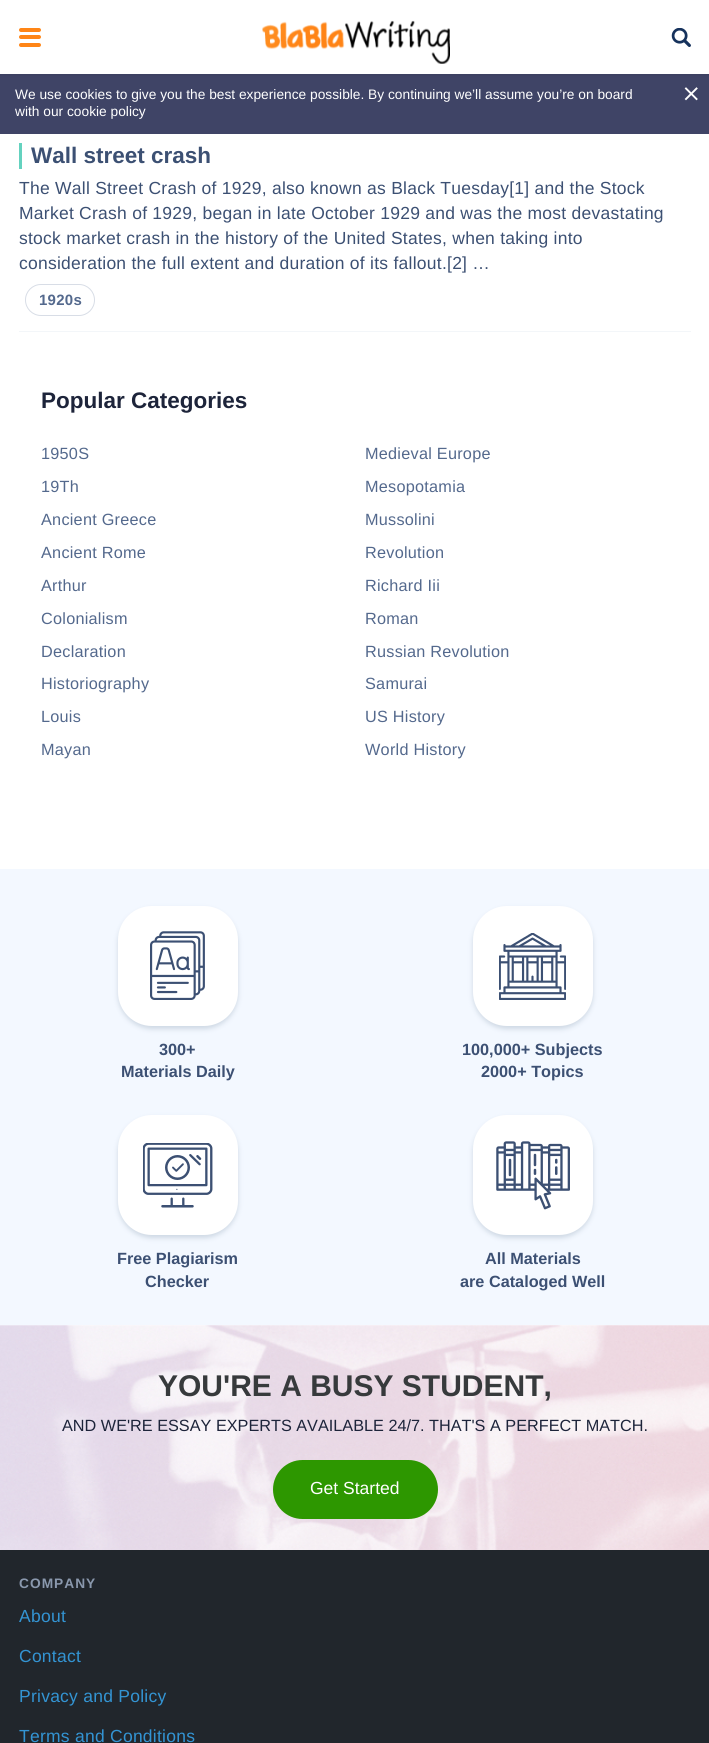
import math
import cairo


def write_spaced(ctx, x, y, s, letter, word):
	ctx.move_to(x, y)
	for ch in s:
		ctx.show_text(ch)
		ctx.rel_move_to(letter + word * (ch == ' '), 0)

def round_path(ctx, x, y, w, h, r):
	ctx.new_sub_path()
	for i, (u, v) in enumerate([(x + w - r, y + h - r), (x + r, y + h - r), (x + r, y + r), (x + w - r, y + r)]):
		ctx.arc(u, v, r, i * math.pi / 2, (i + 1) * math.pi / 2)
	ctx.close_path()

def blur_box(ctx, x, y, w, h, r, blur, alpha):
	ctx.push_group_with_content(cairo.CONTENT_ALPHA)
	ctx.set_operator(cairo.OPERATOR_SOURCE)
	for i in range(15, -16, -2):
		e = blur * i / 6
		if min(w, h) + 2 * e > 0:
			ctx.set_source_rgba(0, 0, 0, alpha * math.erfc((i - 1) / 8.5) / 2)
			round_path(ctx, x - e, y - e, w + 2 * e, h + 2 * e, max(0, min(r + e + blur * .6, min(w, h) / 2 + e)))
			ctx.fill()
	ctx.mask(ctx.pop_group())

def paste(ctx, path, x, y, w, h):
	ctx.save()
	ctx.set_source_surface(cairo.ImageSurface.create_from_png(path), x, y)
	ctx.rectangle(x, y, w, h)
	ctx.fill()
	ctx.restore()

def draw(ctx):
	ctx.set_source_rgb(1, 1, 1)
	ctx.paint()
	ctx.set_source_rgb(0.247, 0.267, 0.4)
	ctx.rectangle(0, 74, 709, 60)
	ctx.fill()
	ctx.set_source_rgb(0.118, 0.125, 0.188)
	blur_box(ctx, -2, -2, 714, 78, 0, 1, 0.1)
	ctx.set_source_rgb(1, 1, 1)
	ctx.rectangle(0, 0, 709, 74)
	ctx.fill()
	ctx.set_source_rgb(1, 0.522, 0.086)
	round_path(ctx, 19, 28, 22, 4, 2)
	ctx.fill()
	round_path(ctx, 19, 35, 22, 4, 2)
	ctx.fill()
	round_path(ctx, 19, 43, 22, 4, 2)
	ctx.fill()
	paste(ctx, 'media/1.png', 262, 20, 188, 44)
	paste(ctx, 'media/2.png', 671, 28, 20, 19)
	ctx.select_font_face('Liberation Sans')
	ctx.set_font_size(13.75)
	ctx.set_source_rgb(1, 1, 1)
	ctx.move_to(15, 99)
	ctx.show_text('We use cookies to give you the best experience possible. By continuing we’ll assume you’re on board')
	ctx.move_to(15, 116)
	ctx.show_text('with our cookie policy')
	ctx.new_path()
	ctx.move_to(696.5, 88.5)
	ctx.line_to(686, 99)
	ctx.move_to(696.5, 99)
	ctx.line_to(686, 88.5)
	ctx.set_line_width(1.9)
	ctx.set_line_cap(cairo.LINE_CAP_SQUARE)
	ctx.stroke()
	ctx.set_source_rgb(0.953, 0.961, 0.973)
	ctx.rectangle(19, 331, 672, 1)
	ctx.fill()
	ctx.set_source_rgb(0.392, 0.824, 0.749)
	ctx.rectangle(19, 143, 3, 26)
	ctx.fill()
	ctx.select_font_face('Liberation Sans', cairo.FONT_SLANT_NORMAL, cairo.FONT_WEIGHT_BOLD)
	ctx.set_font_size(22.5)
	ctx.set_source_rgb(0.235, 0.314, 0.451)
	ctx.move_to(31, 163)
	ctx.show_text('Wall street crash')
	ctx.select_font_face('Liberation Sans')
	ctx.set_font_size(17.5)
	for x, y, s in [
		(19, 194, 'The Wall Street Crash of 1929, also known as Black Tuesday[1] and the Stock'),
		(19, 219, 'Market Crash of 1929, began in late October 1929 and was the most devastating'),
		(19, 244, 'stock market crash in the history of the United States, when taking into'),
		(19, 269, 'consideration the full extent and duration of its fallout.[2] …'),
	]:
		write_spaced(ctx, x, y, s, 0.25, 0)
	round_path(ctx, 25.5, 284.5, 69, 31, 15.5)
	ctx.set_source_rgb(0.847, 0.867, 0.902)
	ctx.set_line_width(1)
	ctx.set_line_cap(cairo.LINE_CAP_BUTT)
	ctx.stroke()
	ctx.select_font_face('Liberation Sans', cairo.FONT_SLANT_NORMAL, cairo.FONT_WEIGHT_BOLD)
	ctx.set_font_size(15)
	ctx.set_source_rgb(0.329, 0.412, 0.553)
	write_spaced(ctx, 39, 305, '1920s', 0.25, 0)
	ctx.set_font_size(22.5)
	ctx.set_source_rgb(0.114, 0.141, 0.227)
	ctx.move_to(41, 408)
	ctx.show_text('Popular Categories')
	ctx.select_font_face('Liberation Sans')
	ctx.set_font_size(16.25)
	ctx.set_source_rgb(0.329, 0.412, 0.553)
	for x, y, s in [
		(41, 459, '1950S'),
		(365, 459, 'Medieval Europe'),
		(41, 492, '19Th'),
		(365, 492, 'Mesopotamia'),
		(41, 525, 'Ancient Greece'),
		(365, 525, 'Mussolini'),
		(41, 558, 'Ancient Rome'),
		(365, 558, 'Revolution'),
		(41, 591, 'Arthur'),
		(365, 591, 'Richard Iii'),
		(41, 624, 'Colonialism'),
		(365, 624, 'Roman'),
		(41, 657, 'Declaration'),
		(365, 657, 'Russian Revolution'),
		(41, 689, 'Historiography'),
		(365, 689, 'Samurai'),
		(41, 722, 'Louis'),
		(365, 722, 'US History'),
		(41, 755, 'Mayan'),
		(365, 755, 'World History'),
	]:
		write_spaced(ctx, x, y, s, 0.25, 0)
	ctx.set_source_rgb(0.953, 0.969, 1)
	ctx.rectangle(0, 869, 709, 456)
	ctx.fill()
	ctx.set_source_rgb(0.659, 0.718, 0.78)
	blur_box(ctx, 118, 909, 120, 120, 34, 2.5, 0.5)
	ctx.set_source_rgb(1, 1, 1)
	round_path(ctx, 118, 906, 120, 120, 34)
	ctx.fill()
	paste(ctx, 'media/3.png', 150, 931, 55, 69)
	ctx.select_font_face('Liberation Sans', cairo.FONT_SLANT_NORMAL, cairo.FONT_WEIGHT_BOLD)
	ctx.set_source_rgb(0.235, 0.314, 0.451)
	ctx.move_to(159, 1055)
	ctx.show_text('300+')
	ctx.move_to(121, 1077)
	ctx.show_text('Materials Daily')
	ctx.set_source_rgb(0.659, 0.718, 0.78)
	blur_box(ctx, 473, 909, 120, 120, 34, 2.5, 0.5)
	ctx.set_source_rgb(1, 1, 1)
	round_path(ctx, 473, 906, 120, 120, 34)
	ctx.fill()
	paste(ctx, 'media/4.png', 499, 933, 67, 67)
	ctx.set_source_rgb(0.235, 0.314, 0.451)
	ctx.move_to(462, 1055)
	ctx.show_text('100,000+ Subjects')
	ctx.move_to(481, 1077)
	ctx.show_text('2000+ Topics')
	ctx.set_source_rgb(0.659, 0.718, 0.78)
	blur_box(ctx, 118, 1118, 120, 120, 34, 2.5, 0.5)
	ctx.set_source_rgb(1, 1, 1)
	round_path(ctx, 118, 1115, 120, 120, 34)
	ctx.fill()
	paste(ctx, 'media/5.png', 143, 1143, 70, 65)
	ctx.set_source_rgb(0.235, 0.314, 0.451)
	ctx.move_to(117, 1264)
	ctx.show_text('Free Plagiarism')
	ctx.move_to(145, 1287)
	ctx.show_text('Checker')
	ctx.set_source_rgb(0.659, 0.718, 0.78)
	blur_box(ctx, 473, 1118, 120, 120, 34, 2.5, 0.5)
	ctx.set_source_rgb(1, 1, 1)
	round_path(ctx, 473, 1115, 120, 120, 34)
	ctx.fill()
	paste(ctx, 'media/6.png', 496, 1141, 74, 69)
	ctx.set_source_rgb(0.235, 0.314, 0.451)
	ctx.move_to(485, 1264)
	ctx.show_text('All Materials')
	ctx.move_to(460, 1287)
	ctx.show_text('are Cataloged Well')
	paste(ctx, 'media/7.png', 0, 1325, 709, 225)
	ctx.set_font_size(30)
	ctx.set_source_rgb(0.216, 0.227, 0.235)
	ctx.move_to(158, 1396)
	ctx.show_text('YOU\'RE A BUSY STUDENT,')
	ctx.select_font_face('Liberation Sans')
	ctx.set_font_size(16.25)
	ctx.set_source_rgb(0.114, 0.141, 0.227)
	ctx.move_to(62, 1431)
	ctx.show_text('AND WE\'RE ESSAY EXPERTS AVAILABLE 24/7. THAT\'S A PERFECT MATCH.')
	ctx.set_source_rgb(0.176, 0.592, 0)
	round_path(ctx, 273, 1460, 165, 59, 29.5)
	ctx.fill()
	ctx.set_font_size(17.5)
	ctx.set_source_rgb(1, 1, 1)
	ctx.move_to(310, 1494)
	ctx.show_text('Get Started')
	ctx.set_source_rgb(0.129, 0.149, 0.173)
	ctx.rectangle(0, 1550, 709, 193)
	ctx.fill()
	ctx.select_font_face('Liberation Sans', cairo.FONT_SLANT_NORMAL, cairo.FONT_WEIGHT_BOLD)
	ctx.set_font_size(13.75)
	ctx.set_source_rgb(0.541, 0.596, 0.678)
	write_spaced(ctx, 19, 1588, 'COMPANY', 1, 0)
	ctx.select_font_face('Liberation Sans')
	ctx.set_font_size(17.5)
	ctx.set_source_rgb(0.2, 0.58, 0.827)
	for x, y, s in [
		(19, 1622, 'About'),
		(19, 1662, 'Contact'),
		(19, 1702, 'Privacy and Policy'),
		(19, 1742, 'Terms and Conditions'),
	]:
		write_spaced(ctx, x, y, s, 0.25, 0)


surface = cairo.ImageSurface(cairo.FORMAT_RGB24, 709, 1743)
ctx = cairo.Context(surface)
options = cairo.FontOptions()
options.set_hint_metrics(cairo.HINT_METRICS_OFF)
options.set_hint_style(cairo.HINT_STYLE_NONE)
ctx.set_font_options(options)
ctx.set_miter_limit(4)
draw(ctx)
surface.write_to_png('image.png')
